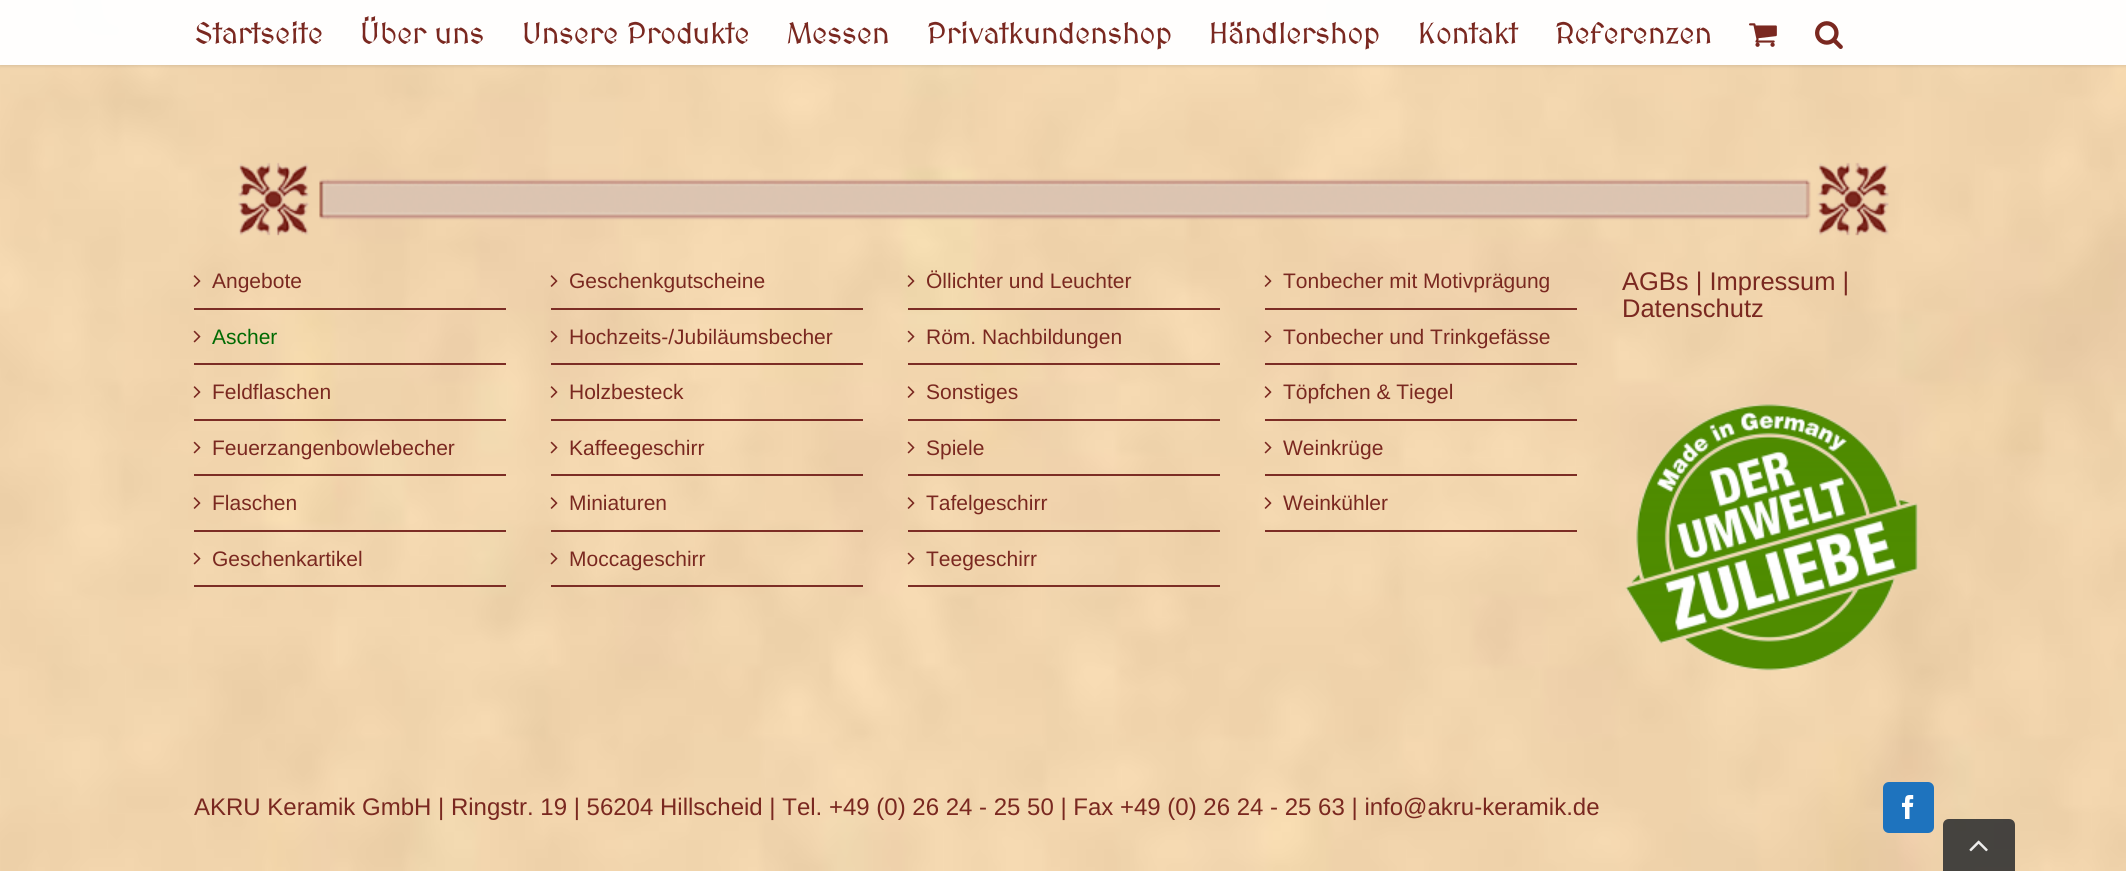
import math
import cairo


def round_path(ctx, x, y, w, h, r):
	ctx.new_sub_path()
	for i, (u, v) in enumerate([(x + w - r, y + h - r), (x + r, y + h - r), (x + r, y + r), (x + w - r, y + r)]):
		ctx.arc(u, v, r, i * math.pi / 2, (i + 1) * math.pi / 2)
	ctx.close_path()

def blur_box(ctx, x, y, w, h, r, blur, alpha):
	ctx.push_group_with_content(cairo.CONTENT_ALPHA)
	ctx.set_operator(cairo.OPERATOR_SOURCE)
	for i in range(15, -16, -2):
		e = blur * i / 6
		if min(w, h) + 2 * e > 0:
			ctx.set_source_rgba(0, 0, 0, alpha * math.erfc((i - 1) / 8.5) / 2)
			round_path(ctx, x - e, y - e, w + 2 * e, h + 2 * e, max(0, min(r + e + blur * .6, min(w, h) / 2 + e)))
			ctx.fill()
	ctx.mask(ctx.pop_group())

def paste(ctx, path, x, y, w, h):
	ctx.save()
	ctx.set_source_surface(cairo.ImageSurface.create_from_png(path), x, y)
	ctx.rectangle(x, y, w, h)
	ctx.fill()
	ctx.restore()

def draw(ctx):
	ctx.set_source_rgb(1, 1, 1)
	ctx.paint()
	paste(ctx, 'media/1.png', 0, 0, 2126, 871)
	ctx.save()
	ctx.set_fill_rule(cairo.FILL_RULE_EVEN_ODD)
	ctx.new_path()
	ctx.move_to(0, 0)
	ctx.line_to(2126, 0)
	ctx.line_to(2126, 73)
	ctx.line_to(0, 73)
	ctx.close_path()
	ctx.move_to(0, 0)
	ctx.line_to(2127, 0)
	ctx.line_to(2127, 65)
	ctx.line_to(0, 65)
	ctx.close_path()
	ctx.clip()
	ctx.set_source_rgb(0, 0, 0)
	blur_box(ctx, 0, 2, 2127, 64, 0, 2, 0.12)
	ctx.restore()
	ctx.set_source_rgba(1, 1, 1, 0.97)
	ctx.rectangle(0, 0, 2126, 65)
	ctx.fill()
	ctx.select_font_face('MedievalSharp Medium')
	ctx.set_font_size(30)
	ctx.set_source_rgb(0.478, 0.157, 0.125)
	for x, y, s in [
		(194, 44, 'Startseite'),
		(360, 44, 'Über uns'),
		(522, 44, 'Unsere Produkte'),
		(787, 44, 'Messen'),
		(927, 44, 'Privatkundenshop'),
		(1209, 44, 'Händlershop'),
		(1418, 44, 'Kontakt'),
		(1555, 44, 'Referenzen'),
	]:
		ctx.move_to(x, y)
		ctx.show_text(s)
	paste(ctx, 'media/2.png', 1749, 23, 28, 24)
	paste(ctx, 'media/3.png', 1815, 21, 28, 28)
	paste(ctx, 'media/4.png', 238, 162, 1651, 74)
	ctx.set_source_rgb(0.486, 0.176, 0.145)
	ctx.rectangle(194, 308, 312, 2)
	ctx.fill()
	paste(ctx, 'media/5.png', 193, 275, 8, 12)
	ctx.select_font_face('Liberation Sans')
	ctx.set_font_size(21)
	ctx.set_source_rgb(0.478, 0.157, 0.125)
	ctx.move_to(212, 288)
	ctx.show_text('Angebote')
	ctx.set_source_rgb(0.486, 0.176, 0.145)
	ctx.rectangle(194, 363, 312, 2)
	ctx.fill()
	paste(ctx, 'media/6.png', 193, 330, 8, 13)
	ctx.set_source_rgb(0, 0.416, 0.008)
	ctx.move_to(212, 344)
	ctx.show_text('Ascher')
	ctx.set_source_rgb(0.486, 0.176, 0.145)
	ctx.rectangle(194, 419, 312, 2)
	ctx.fill()
	paste(ctx, 'media/7.png', 193, 386, 8, 12)
	ctx.set_source_rgb(0.478, 0.157, 0.125)
	ctx.move_to(212, 399)
	ctx.show_text('Feldflaschen')
	ctx.set_source_rgb(0.486, 0.176, 0.145)
	ctx.rectangle(194, 474, 312, 2)
	ctx.fill()
	paste(ctx, 'media/8.png', 193, 441, 8, 13)
	ctx.set_source_rgb(0.478, 0.157, 0.125)
	ctx.move_to(212, 455)
	ctx.show_text('Feuerzangenbowlebecher')
	ctx.set_source_rgb(0.486, 0.176, 0.145)
	ctx.rectangle(194, 530, 312, 2)
	ctx.fill()
	paste(ctx, 'media/9.png', 193, 497, 8, 12)
	ctx.set_source_rgb(0.478, 0.157, 0.125)
	ctx.move_to(212, 510)
	ctx.show_text('Flaschen')
	ctx.set_source_rgb(0.486, 0.176, 0.145)
	ctx.rectangle(194, 585, 312, 2)
	ctx.fill()
	paste(ctx, 'media/10.png', 193, 552, 8, 13)
	ctx.set_source_rgb(0.478, 0.157, 0.125)
	ctx.move_to(212, 566)
	ctx.show_text('Geschenkartikel')
	ctx.set_source_rgb(0.486, 0.176, 0.145)
	ctx.rectangle(551, 308, 312, 2)
	ctx.fill()
	paste(ctx, 'media/11.png', 550, 275, 8, 12)
	ctx.set_source_rgb(0.478, 0.157, 0.125)
	ctx.move_to(569, 288)
	ctx.show_text('Geschenkgutscheine')
	ctx.set_source_rgb(0.486, 0.176, 0.145)
	ctx.rectangle(551, 363, 312, 2)
	ctx.fill()
	paste(ctx, 'media/12.png', 550, 330, 8, 13)
	ctx.set_source_rgb(0.478, 0.157, 0.125)
	ctx.move_to(569, 344)
	ctx.show_text('Hochzeits-/Jubiläumsbecher')
	ctx.set_source_rgb(0.486, 0.176, 0.145)
	ctx.rectangle(551, 419, 312, 2)
	ctx.fill()
	paste(ctx, 'media/13.png', 550, 386, 8, 12)
	ctx.set_source_rgb(0.478, 0.157, 0.125)
	ctx.move_to(569, 399)
	ctx.show_text('Holzbesteck')
	ctx.set_source_rgb(0.486, 0.176, 0.145)
	ctx.rectangle(551, 474, 312, 2)
	ctx.fill()
	paste(ctx, 'media/14.png', 550, 441, 8, 13)
	ctx.set_source_rgb(0.478, 0.157, 0.125)
	ctx.move_to(569, 455)
	ctx.show_text('Kaffeegeschirr')
	ctx.set_source_rgb(0.486, 0.176, 0.145)
	ctx.rectangle(551, 530, 312, 2)
	ctx.fill()
	paste(ctx, 'media/15.png', 550, 497, 8, 12)
	ctx.set_source_rgb(0.478, 0.157, 0.125)
	ctx.move_to(569, 510)
	ctx.show_text('Miniaturen')
	ctx.set_source_rgb(0.486, 0.176, 0.145)
	ctx.rectangle(551, 585, 312, 2)
	ctx.fill()
	paste(ctx, 'media/16.png', 550, 552, 8, 13)
	ctx.set_source_rgb(0.478, 0.157, 0.125)
	ctx.move_to(569, 566)
	ctx.show_text('Moccageschirr')
	ctx.set_source_rgb(0.486, 0.176, 0.145)
	ctx.rectangle(908, 308, 312, 2)
	ctx.fill()
	paste(ctx, 'media/17.png', 907, 275, 8, 12)
	ctx.set_source_rgb(0.478, 0.157, 0.125)
	ctx.move_to(926, 288)
	ctx.show_text('Öllichter und Leuchter')
	ctx.set_source_rgb(0.486, 0.176, 0.145)
	ctx.rectangle(908, 363, 312, 2)
	ctx.fill()
	paste(ctx, 'media/18.png', 907, 330, 8, 13)
	ctx.set_source_rgb(0.478, 0.157, 0.125)
	ctx.move_to(926, 344)
	ctx.show_text('Röm. Nachbildungen')
	ctx.set_source_rgb(0.486, 0.176, 0.145)
	ctx.rectangle(908, 419, 312, 2)
	ctx.fill()
	paste(ctx, 'media/19.png', 907, 386, 8, 12)
	ctx.set_source_rgb(0.478, 0.157, 0.125)
	ctx.move_to(926, 399)
	ctx.show_text('Sonstiges')
	ctx.set_source_rgb(0.486, 0.176, 0.145)
	ctx.rectangle(908, 474, 312, 2)
	ctx.fill()
	paste(ctx, 'media/20.png', 907, 441, 8, 13)
	ctx.set_source_rgb(0.478, 0.157, 0.125)
	ctx.move_to(926, 455)
	ctx.show_text('Spiele')
	ctx.set_source_rgb(0.486, 0.176, 0.145)
	ctx.rectangle(908, 530, 312, 2)
	ctx.fill()
	paste(ctx, 'media/21.png', 907, 497, 8, 12)
	ctx.set_source_rgb(0.478, 0.157, 0.125)
	ctx.move_to(926, 510)
	ctx.show_text('Tafelgeschirr')
	ctx.set_source_rgb(0.486, 0.176, 0.145)
	ctx.rectangle(908, 585, 312, 2)
	ctx.fill()
	paste(ctx, 'media/22.png', 907, 552, 8, 13)
	ctx.set_source_rgb(0.478, 0.157, 0.125)
	ctx.move_to(926, 566)
	ctx.show_text('Teegeschirr')
	ctx.set_source_rgb(0.486, 0.176, 0.145)
	ctx.rectangle(1265, 308, 312, 2)
	ctx.fill()
	paste(ctx, 'media/23.png', 1264, 275, 8, 12)
	ctx.set_source_rgb(0.478, 0.157, 0.125)
	ctx.move_to(1283, 288)
	ctx.show_text('Tonbecher mit Motivprägung')
	ctx.set_source_rgb(0.486, 0.176, 0.145)
	ctx.rectangle(1265, 363, 312, 2)
	ctx.fill()
	paste(ctx, 'media/24.png', 1264, 330, 8, 13)
	ctx.set_source_rgb(0.478, 0.157, 0.125)
	ctx.move_to(1283, 344)
	ctx.show_text('Tonbecher und Trinkgefässe')
	ctx.set_source_rgb(0.486, 0.176, 0.145)
	ctx.rectangle(1265, 419, 312, 2)
	ctx.fill()
	paste(ctx, 'media/25.png', 1264, 386, 8, 12)
	ctx.set_source_rgb(0.478, 0.157, 0.125)
	ctx.move_to(1283, 399)
	ctx.show_text('Töpfchen & Tiegel')
	ctx.set_source_rgb(0.486, 0.176, 0.145)
	ctx.rectangle(1265, 474, 312, 2)
	ctx.fill()
	paste(ctx, 'media/26.png', 1264, 441, 8, 13)
	ctx.set_source_rgb(0.478, 0.157, 0.125)
	ctx.move_to(1283, 455)
	ctx.show_text('Weinkrüge')
	ctx.set_source_rgb(0.486, 0.176, 0.145)
	ctx.rectangle(1265, 530, 312, 2)
	ctx.fill()
	paste(ctx, 'media/27.png', 1264, 497, 8, 12)
	ctx.set_source_rgb(0.478, 0.157, 0.125)
	ctx.move_to(1283, 510)
	ctx.show_text('Weinkühler')
	ctx.set_font_size(25.5)
	ctx.move_to(1622, 290)
	ctx.show_text('AGBs | Impressum |')
	ctx.move_to(1622, 317)
	ctx.show_text('Datenschutz')
	paste(ctx, 'media/28.png', 1625, 404, 293, 267)
	ctx.set_font_size(24)
	ctx.move_to(194, 815)
	ctx.show_text('AKRU Keramik GmbH | Ringstr. 19 | 56204 Hillscheid | Tel. +49 (0) 26 24 - 25 50 | Fax +49 (0) 26 24 - 25 63 | info@akru-keramik.de')
	ctx.set_source_rgb(0.118, 0.451, 0.745)
	round_path(ctx, 1884, 783, 49, 49, 5)
	ctx.fill_preserve()
	ctx.stroke()
	paste(ctx, 'media/29.png', 1902, 795, 12, 24)
	ctx.set_source_rgba(0.2, 0.2, 0.2, 0.9)
	ctx.new_path()
	ctx.move_to(1949, 819)
	ctx.line_to(2009, 819)
	ctx.curve_to(2012.5, 819, 2015, 821.5, 2015, 825)
	ctx.line_to(2015, 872)
	ctx.line_to(1943, 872)
	ctx.line_to(1943, 825)
	ctx.curve_to(1943, 821.5, 1945.5, 819, 1949, 819)
	ctx.close_path()
	ctx.fill()
	paste(ctx, 'media/30.png', 1969, 840, 19, 12)


surface = cairo.ImageSurface(cairo.FORMAT_RGB24, 2126, 871)
ctx = cairo.Context(surface)
options = cairo.FontOptions()
options.set_hint_metrics(cairo.HINT_METRICS_OFF)
options.set_hint_style(cairo.HINT_STYLE_NONE)
ctx.set_font_options(options)
ctx.set_miter_limit(4)
draw(ctx)
surface.write_to_png('image.png')
